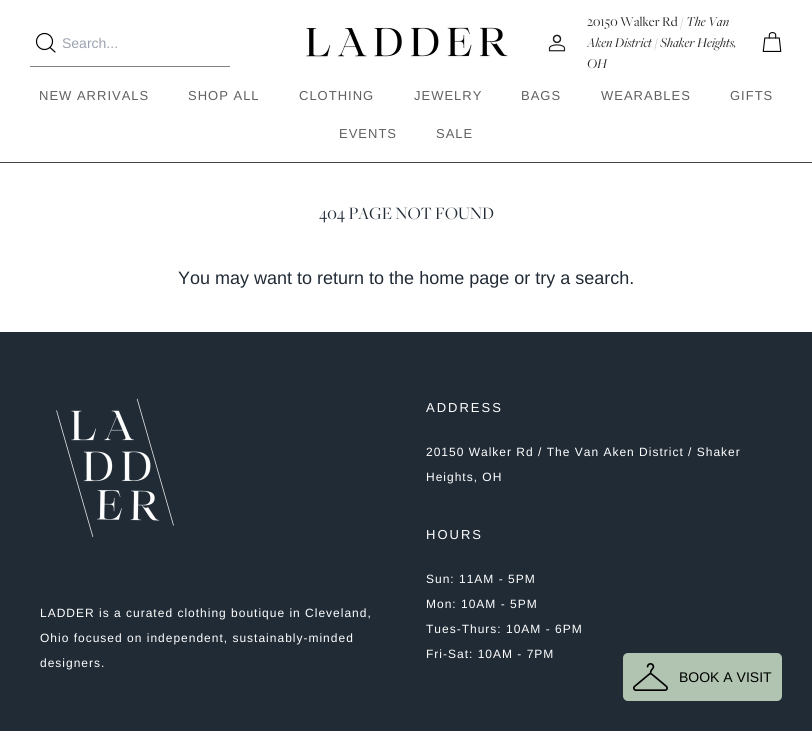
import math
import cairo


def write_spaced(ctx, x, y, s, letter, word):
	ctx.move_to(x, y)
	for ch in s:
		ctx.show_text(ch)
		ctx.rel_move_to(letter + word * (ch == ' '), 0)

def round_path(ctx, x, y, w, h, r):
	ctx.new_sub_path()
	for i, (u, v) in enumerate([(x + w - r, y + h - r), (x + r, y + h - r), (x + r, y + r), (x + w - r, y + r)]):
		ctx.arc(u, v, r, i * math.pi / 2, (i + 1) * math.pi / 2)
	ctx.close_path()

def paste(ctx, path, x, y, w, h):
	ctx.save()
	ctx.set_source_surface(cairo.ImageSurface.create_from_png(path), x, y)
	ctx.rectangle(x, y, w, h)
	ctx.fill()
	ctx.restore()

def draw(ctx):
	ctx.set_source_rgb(1, 1, 1)
	ctx.paint()
	ctx.set_source_rgb(0.267, 0.267, 0.267)
	ctx.rectangle(0, 162, 812, 1)
	ctx.fill()
	ctx.arc(44.5, 41.5, 8, 0, 2 * math.pi)
	ctx.set_source_rgb(0, 0, 0)
	ctx.set_line_width(1.2)
	ctx.stroke()
	ctx.new_path()
	ctx.move_to(50, 47.5)
	ctx.line_to(55, 52)
	ctx.set_line_cap(cairo.LINE_CAP_ROUND)
	ctx.stroke()
	ctx.set_source_rgb(0.502, 0.502, 0.502)
	ctx.rectangle(30, 66, 200, 1)
	ctx.fill()
	ctx.select_font_face('Liberation Sans')
	ctx.set_font_size(14)
	ctx.set_source_rgb(0.612, 0.639, 0.686)
	ctx.move_to(62, 48)
	ctx.show_text('Search...')
	paste(ctx, 'media/1.png', 306, 27, 202, 31)
	paste(ctx, 'media/2.png', 548, 34, 18, 18)
	ctx.select_font_face('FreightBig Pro')
	ctx.set_source_rgb(0.137, 0.137, 0.137)
	ctx.move_to(587, 26)
	ctx.show_text('20150 Walker Rd /')
	ctx.select_font_face('FreightBig Pro', cairo.FONT_SLANT_ITALIC)
	for x, y, s in [
		(686, 26, 'The Van'),
		(587, 47, 'Aken District / Shaker Heights,'),
		(587, 68, 'OH'),
	]:
		ctx.move_to(x, y)
		ctx.show_text(s)
	paste(ctx, 'media/3.png', 762, 32, 20, 20)
	ctx.select_font_face('Liberation Sans')
	ctx.set_font_size(13)
	ctx.set_source_rgb(0.376, 0.376, 0.376)
	for x, y, s in [
		(39, 100, 'NEW ARRIVALS'),
		(188, 100, 'SHOP ALL'),
		(299, 100, 'CLOTHING'),
		(414, 100, 'JEWELRY'),
		(521, 100, 'BAGS'),
		(601, 100, 'WEARABLES'),
		(730, 100, 'GIFTS'),
		(339, 138, 'EVENTS'),
		(436, 138, 'SALE'),
	]:
		write_spaced(ctx, x, y, s, 1, 0)
	ctx.select_font_face('FreightBig Pro')
	ctx.set_font_size(18)
	ctx.set_source_rgb(0.129, 0.169, 0.212)
	ctx.move_to(319, 219)
	ctx.show_text('404 PAGE NOT FOUND')
	ctx.select_font_face('Liberation Sans')
	ctx.move_to(178, 284)
	ctx.show_text('You may want to return to the home page or try a search.')
	ctx.rectangle(0, 332, 812, 399)
	ctx.fill()
	paste(ctx, 'media/4.png', 56, 398, 118, 140)
	ctx.set_font_size(12)
	ctx.set_source_rgb(1, 1, 1)
	for x, y, s in [
		(40, 617, 'LADDER is a curated clothing boutique in Cleveland,'),
		(40, 642, 'Ohio focused on independent, sustainably-minded'),
		(40, 667, 'designers.'),
	]:
		write_spaced(ctx, x, y, s, 1, 0)
	ctx.set_font_size(13)
	write_spaced(ctx, 426, 412, 'ADDRESS', 2, 0)
	ctx.set_font_size(12)
	write_spaced(ctx, 426, 456, '20150 Walker Rd / The Van Aken District / Shaker', 1, 0)
	write_spaced(ctx, 426, 481, 'Heights, OH', 1, 0)
	ctx.set_font_size(13)
	write_spaced(ctx, 426, 539, 'HOURS', 2, 0)
	ctx.set_font_size(12)
	for x, y, s in [
		(426, 583, 'Sun: 11AM - 5PM'),
		(426, 608, 'Mon: 10AM - 5PM'),
		(426, 633, 'Tues-Thurs: 10AM - 6PM'),
		(426, 658, 'Fri-Sat: 10AM - 7PM'),
	]:
		write_spaced(ctx, x, y, s, 1, 0)
	ctx.set_source_rgb(0.69, 0.769, 0.694)
	round_path(ctx, 623, 653, 159, 48, 5)
	ctx.fill()
	paste(ctx, 'media/5.png', 633, 663, 35, 28)
	ctx.set_font_size(14)
	ctx.set_source_rgb(0, 0, 0)
	ctx.move_to(679, 682)
	ctx.show_text('BOOK A VISIT')


surface = cairo.ImageSurface(cairo.FORMAT_RGB24, 812, 731)
ctx = cairo.Context(surface)
options = cairo.FontOptions()
options.set_hint_metrics(cairo.HINT_METRICS_OFF)
options.set_hint_style(cairo.HINT_STYLE_NONE)
ctx.set_font_options(options)
ctx.set_miter_limit(4)
draw(ctx)
surface.write_to_png('image.png')
